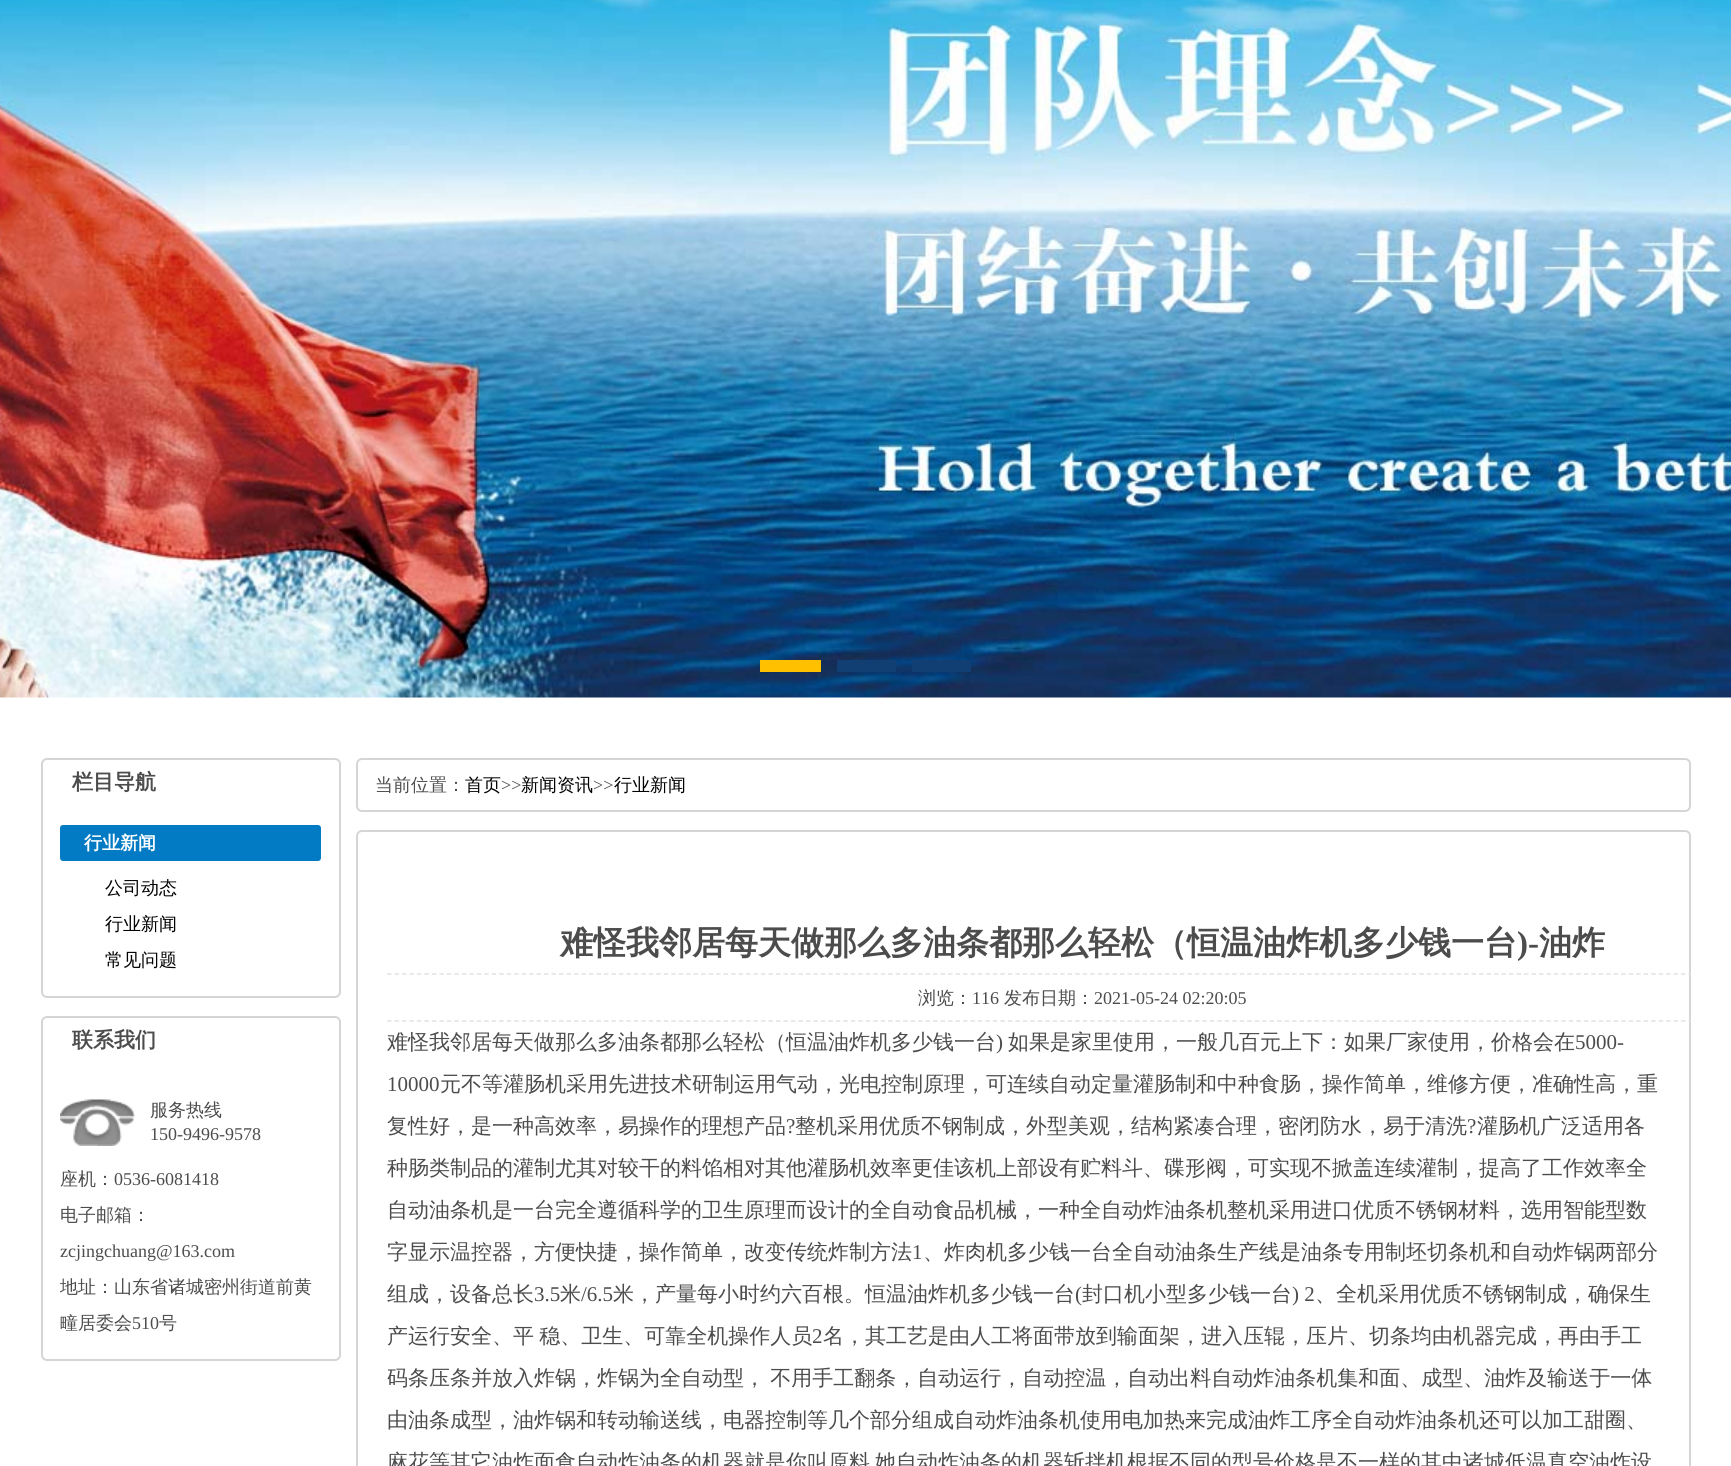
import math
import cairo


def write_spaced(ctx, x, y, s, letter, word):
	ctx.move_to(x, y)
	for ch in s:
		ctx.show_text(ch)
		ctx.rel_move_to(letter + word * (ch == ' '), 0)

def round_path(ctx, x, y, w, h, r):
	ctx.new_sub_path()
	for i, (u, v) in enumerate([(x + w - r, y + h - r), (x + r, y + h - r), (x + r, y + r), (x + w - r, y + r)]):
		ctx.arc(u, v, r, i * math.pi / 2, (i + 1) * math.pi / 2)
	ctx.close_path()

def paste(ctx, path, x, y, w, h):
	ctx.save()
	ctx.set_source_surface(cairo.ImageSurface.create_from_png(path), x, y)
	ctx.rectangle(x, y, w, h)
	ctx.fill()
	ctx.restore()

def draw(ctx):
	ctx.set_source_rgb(1, 1, 1)
	ctx.paint()
	paste(ctx, 'media/1.png', 0, 0, 1731, 698)
	ctx.set_source_rgb(1, 0.753, 0)
	ctx.rectangle(760, 660, 61, 12)
	ctx.fill()
	ctx.set_source_rgb(0.067, 0.247, 0.451)
	ctx.rectangle(837, 660, 59, 12)
	ctx.rectangle(912, 660, 59, 12)
	ctx.fill()
	round_path(ctx, 42, 759, 298, 238, 5)
	ctx.set_source_rgb(0.835, 0.835, 0.835)
	ctx.stroke()
	ctx.select_font_face('WenQuanYi Zen Hei', cairo.FONT_SLANT_NORMAL, cairo.FONT_WEIGHT_BOLD)
	ctx.set_font_size(21)
	ctx.set_source_rgb(0.298, 0.298, 0.298)
	ctx.move_to(72, 789)
	ctx.show_text('栏目导航')
	ctx.set_source_rgb(0.008, 0.482, 0.769)
	round_path(ctx, 60, 825, 261, 36, 3)
	ctx.fill()
	ctx.set_font_size(18)
	ctx.set_source_rgb(1, 1, 1)
	ctx.move_to(84, 849)
	ctx.show_text('行业新闻')
	ctx.select_font_face('WenQuanYi Zen Hei Medium')
	ctx.set_source_rgb(0, 0, 0)
	for x, y, s in [
		(105, 894, '公司动态'),
		(105, 930, '行业新闻'),
		(105, 966, '常见问题'),
	]:
		ctx.move_to(x, y)
		ctx.show_text(s)
	round_path(ctx, 42, 1017, 298, 343, 5)
	ctx.set_source_rgb(0.835, 0.835, 0.835)
	ctx.stroke()
	ctx.select_font_face('WenQuanYi Zen Hei', cairo.FONT_SLANT_NORMAL, cairo.FONT_WEIGHT_BOLD)
	ctx.set_font_size(21)
	ctx.set_source_rgb(0.298, 0.298, 0.298)
	ctx.move_to(72, 1047)
	ctx.show_text('联系我们')
	paste(ctx, 'media/2.png', 60, 1099, 75, 47)
	ctx.select_font_face('WenQuanYi Zen Hei Medium')
	ctx.set_font_size(18)
	ctx.move_to(150, 1116)
	ctx.show_text('服务热线')
	ctx.select_font_face('Liberation Serif')
	ctx.move_to(150, 1140)
	ctx.show_text('150-9496-9578')
	ctx.select_font_face('WenQuanYi Zen Hei Medium')
	ctx.move_to(60, 1185)
	ctx.show_text('座机：')
	ctx.select_font_face('Liberation Serif')
	ctx.move_to(114, 1185)
	ctx.show_text('0536-6081418')
	ctx.select_font_face('WenQuanYi Zen Hei Medium')
	ctx.move_to(60, 1221)
	ctx.show_text('电子邮箱：')
	ctx.select_font_face('Liberation Serif')
	ctx.move_to(60, 1257)
	ctx.show_text('zcjingchuang@163.com')
	ctx.select_font_face('WenQuanYi Zen Hei Medium')
	ctx.move_to(60, 1293)
	ctx.show_text('地址：山东省诸城密州街道前黄')
	ctx.move_to(60, 1329)
	ctx.show_text('疃居委会')
	ctx.select_font_face('Liberation Serif')
	ctx.move_to(132, 1329)
	ctx.show_text('510')
	ctx.select_font_face('WenQuanYi Zen Hei Medium')
	ctx.move_to(159, 1329)
	ctx.show_text('号')
	round_path(ctx, 357, 759, 1333, 52, 5)
	ctx.set_source_rgb(0.835, 0.835, 0.835)
	ctx.stroke()
	ctx.set_source_rgb(0.298, 0.298, 0.298)
	ctx.move_to(375, 791)
	ctx.show_text('当前位置：')
	ctx.set_source_rgb(0, 0, 0)
	ctx.move_to(465, 791)
	ctx.show_text('首页')
	ctx.select_font_face('Liberation Serif')
	ctx.set_source_rgb(0.298, 0.298, 0.298)
	ctx.move_to(501, 791)
	ctx.show_text('>>')
	ctx.select_font_face('WenQuanYi Zen Hei Medium')
	ctx.set_source_rgb(0, 0, 0)
	ctx.move_to(521, 791)
	ctx.show_text('新闻资讯')
	ctx.select_font_face('Liberation Serif')
	ctx.set_source_rgb(0.298, 0.298, 0.298)
	ctx.move_to(593, 791)
	ctx.show_text('>>')
	ctx.select_font_face('WenQuanYi Zen Hei Medium')
	ctx.set_source_rgb(0, 0, 0)
	ctx.move_to(614, 791)
	ctx.show_text('行业新闻')
	round_path(ctx, 357, 831, 1333, 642, 5)
	ctx.set_source_rgb(0.835, 0.835, 0.835)
	ctx.stroke()
	ctx.save()
	ctx.rectangle(356, 758, 1335, 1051)
	ctx.clip()
	ctx.new_path()
	ctx.move_to(387, 974)
	ctx.line_to(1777.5, 974)
	ctx.set_source_rgb(0.882, 0.89, 0.875)
	ctx.set_line_width(1.5)
	ctx.set_dash([4.5, 2.98])
	ctx.stroke()
	ctx.restore()
	ctx.select_font_face('WenQuanYi Zen Hei', cairo.FONT_SLANT_NORMAL, cairo.FONT_WEIGHT_BOLD)
	ctx.set_font_size(33)
	ctx.set_source_rgb(0.298, 0.298, 0.298)
	ctx.move_to(560, 954)
	ctx.show_text('难怪我邻居每天做那么多油条都那么轻松（恒温油炸机多少钱一台')
	ctx.select_font_face('Liberation Serif', cairo.FONT_SLANT_NORMAL, cairo.FONT_WEIGHT_BOLD)
	ctx.move_to(1517, 954)
	ctx.show_text(')-')
	ctx.select_font_face('WenQuanYi Zen Hei', cairo.FONT_SLANT_NORMAL, cairo.FONT_WEIGHT_BOLD)
	ctx.move_to(1539, 954)
	ctx.show_text('油炸')
	ctx.save()
	ctx.rectangle(356, 758, 1335, 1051)
	ctx.clip()
	ctx.new_path()
	ctx.move_to(387, 1021)
	ctx.line_to(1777.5, 1021)
	ctx.set_source_rgb(0.882, 0.89, 0.875)
	ctx.set_line_width(1.5)
	ctx.set_dash([4.5, 2.98])
	ctx.stroke()
	ctx.restore()
	ctx.select_font_face('WenQuanYi Zen Hei Medium')
	ctx.set_font_size(18)
	ctx.move_to(918, 1004)
	ctx.show_text('浏览：')
	ctx.select_font_face('Liberation Serif')
	ctx.move_to(972, 1004)
	ctx.show_text('116')
	ctx.select_font_face('WenQuanYi Zen Hei Medium')
	ctx.move_to(1004, 1004)
	ctx.show_text('发布日期：')
	ctx.select_font_face('Liberation Serif')
	ctx.move_to(1094, 1004)
	ctx.show_text('2021-05-24 02:20:05')
	ctx.select_font_face('WenQuanYi Zen Hei Medium')
	ctx.set_font_size(21)
	ctx.move_to(387, 1049)
	ctx.show_text('难怪我邻居每天做那么多油条都那么轻松（恒温油炸机多少钱一台')
	ctx.select_font_face('Liberation Serif')
	ctx.move_to(996, 1049)
	ctx.show_text(')')
	ctx.select_font_face('WenQuanYi Zen Hei Medium')
	ctx.move_to(1008, 1049)
	ctx.show_text('如果是家里使用，一般几百元上下：如果厂家使用，价格会在')
	ctx.select_font_face('Liberation Serif')
	ctx.move_to(1575, 1049)
	ctx.show_text('5000-')
	ctx.move_to(387, 1091)
	ctx.show_text('10000')
	ctx.select_font_face('WenQuanYi Zen Hei Medium')
	ctx.move_to(440, 1091)
	ctx.show_text('元不等灌肠机采用先进技术研制运用气动，光电控制原理，可连续自动定量灌肠制和中种食肠，操作简单，维修方便，准确性高，重')
	ctx.move_to(387, 1133)
	ctx.show_text('复性好，是一种高效率，易操作的理想产品')
	ctx.select_font_face('Liberation Serif')
	ctx.move_to(786, 1133)
	ctx.show_text('?')
	ctx.select_font_face('WenQuanYi Zen Hei Medium')
	ctx.move_to(795, 1133)
	ctx.show_text('整机采用优质不钢制成，外型美观，结构紧凑合理，密闭防水，易于清洗')
	ctx.select_font_face('Liberation Serif')
	ctx.move_to(1467, 1133)
	ctx.show_text('?')
	ctx.select_font_face('WenQuanYi Zen Hei Medium')
	for x, y, s in [
		(1477, 1133, '灌肠机广泛适用各'),
		(387, 1175, '种肠类制品的灌制尤其对较干的料馅相对其他灌肠机效率更佳该机上部设有贮料斗、碟形阀，可实现不掀盖连续灌制，提高了工作效率全'),
		(387, 1217, '自动油条机是一台完全遵循科学的卫生原理而设计的全自动食品机械，一种全自动炸油条机整机采用进口优质不锈钢材料，选用智能型数'),
		(387, 1259, '字显示温控器，方便快捷，操作简单，改变传统炸制方法'),
	]:
		ctx.move_to(x, y)
		ctx.show_text(s)
	ctx.select_font_face('Liberation Serif')
	ctx.move_to(912, 1259)
	ctx.show_text('1')
	ctx.select_font_face('WenQuanYi Zen Hei Medium')
	ctx.move_to(923, 1259)
	ctx.show_text('、炸肉机多少钱一台全自动油条生产线是油条专用制坯切条机和自动炸锅两部分')
	ctx.move_to(387, 1301)
	ctx.show_text('组成，设备总长')
	ctx.select_font_face('Liberation Serif')
	ctx.move_to(534, 1301)
	ctx.show_text('3.5')
	ctx.select_font_face('WenQuanYi Zen Hei Medium')
	ctx.move_to(560, 1301)
	ctx.show_text('米')
	ctx.select_font_face('Liberation Serif')
	ctx.move_to(581, 1301)
	ctx.show_text('/6.5')
	ctx.select_font_face('WenQuanYi Zen Hei Medium')
	ctx.move_to(613, 1301)
	ctx.show_text('米，产量每小时约六百根。恒温油炸机多少钱一台')
	ctx.select_font_face('Liberation Serif')
	ctx.move_to(1075, 1301)
	ctx.show_text('(')
	ctx.select_font_face('WenQuanYi Zen Hei Medium')
	ctx.move_to(1082, 1301)
	ctx.show_text('封口机小型多少钱一台')
	ctx.select_font_face('Liberation Serif')
	ctx.move_to(1292, 1301)
	ctx.show_text(') 2')
	ctx.select_font_face('WenQuanYi Zen Hei Medium')
	ctx.move_to(1315, 1301)
	ctx.show_text('、全机采用优质不锈钢制成，确保生')
	write_spaced(ctx, 387, 1343, '产运行安全、平 稳、卫生、可靠全机操作人员', 0, -1)
	ctx.select_font_face('Liberation Serif')
	ctx.move_to(812, 1343)
	ctx.show_text('2')
	ctx.select_font_face('WenQuanYi Zen Hei Medium')
	ctx.move_to(823, 1343)
	ctx.show_text('名，其工艺是由人工将面带放到输面架，进入压辊，压片、切条均由机器完成，再由手工')
	write_spaced(ctx, 387, 1385, '码条压条并放入炸锅，炸锅为全自动型， 不用手工翻条，自动运行，自动控温，自动出料自动炸油条机集和面、成型、油炸及输送于一体', 0, -1)
	for x, y, s in [
		(387, 1427, '由油条成型，油炸锅和转动输送线，电器控制等几个部分组成自动炸油条机使用电加热来完成油炸工序全自动炸油条机还可以加工甜圈、'),
		(387, 1469, '麻花等其它油炸面食自动炸油条的机器就是你叫原料'),
		(875, 1469, '她自动炸油条的机器斩拌机根据不同的型号价格是不一样的其中诸城低温真空油炸设'),
	]:
		ctx.move_to(x, y)
		ctx.show_text(s)


surface = cairo.ImageSurface(cairo.FORMAT_RGB24, 1731, 1466)
ctx = cairo.Context(surface)
options = cairo.FontOptions()
options.set_hint_metrics(cairo.HINT_METRICS_OFF)
options.set_hint_style(cairo.HINT_STYLE_NONE)
ctx.set_font_options(options)
ctx.set_miter_limit(4)
draw(ctx)
surface.write_to_png('image.png')
